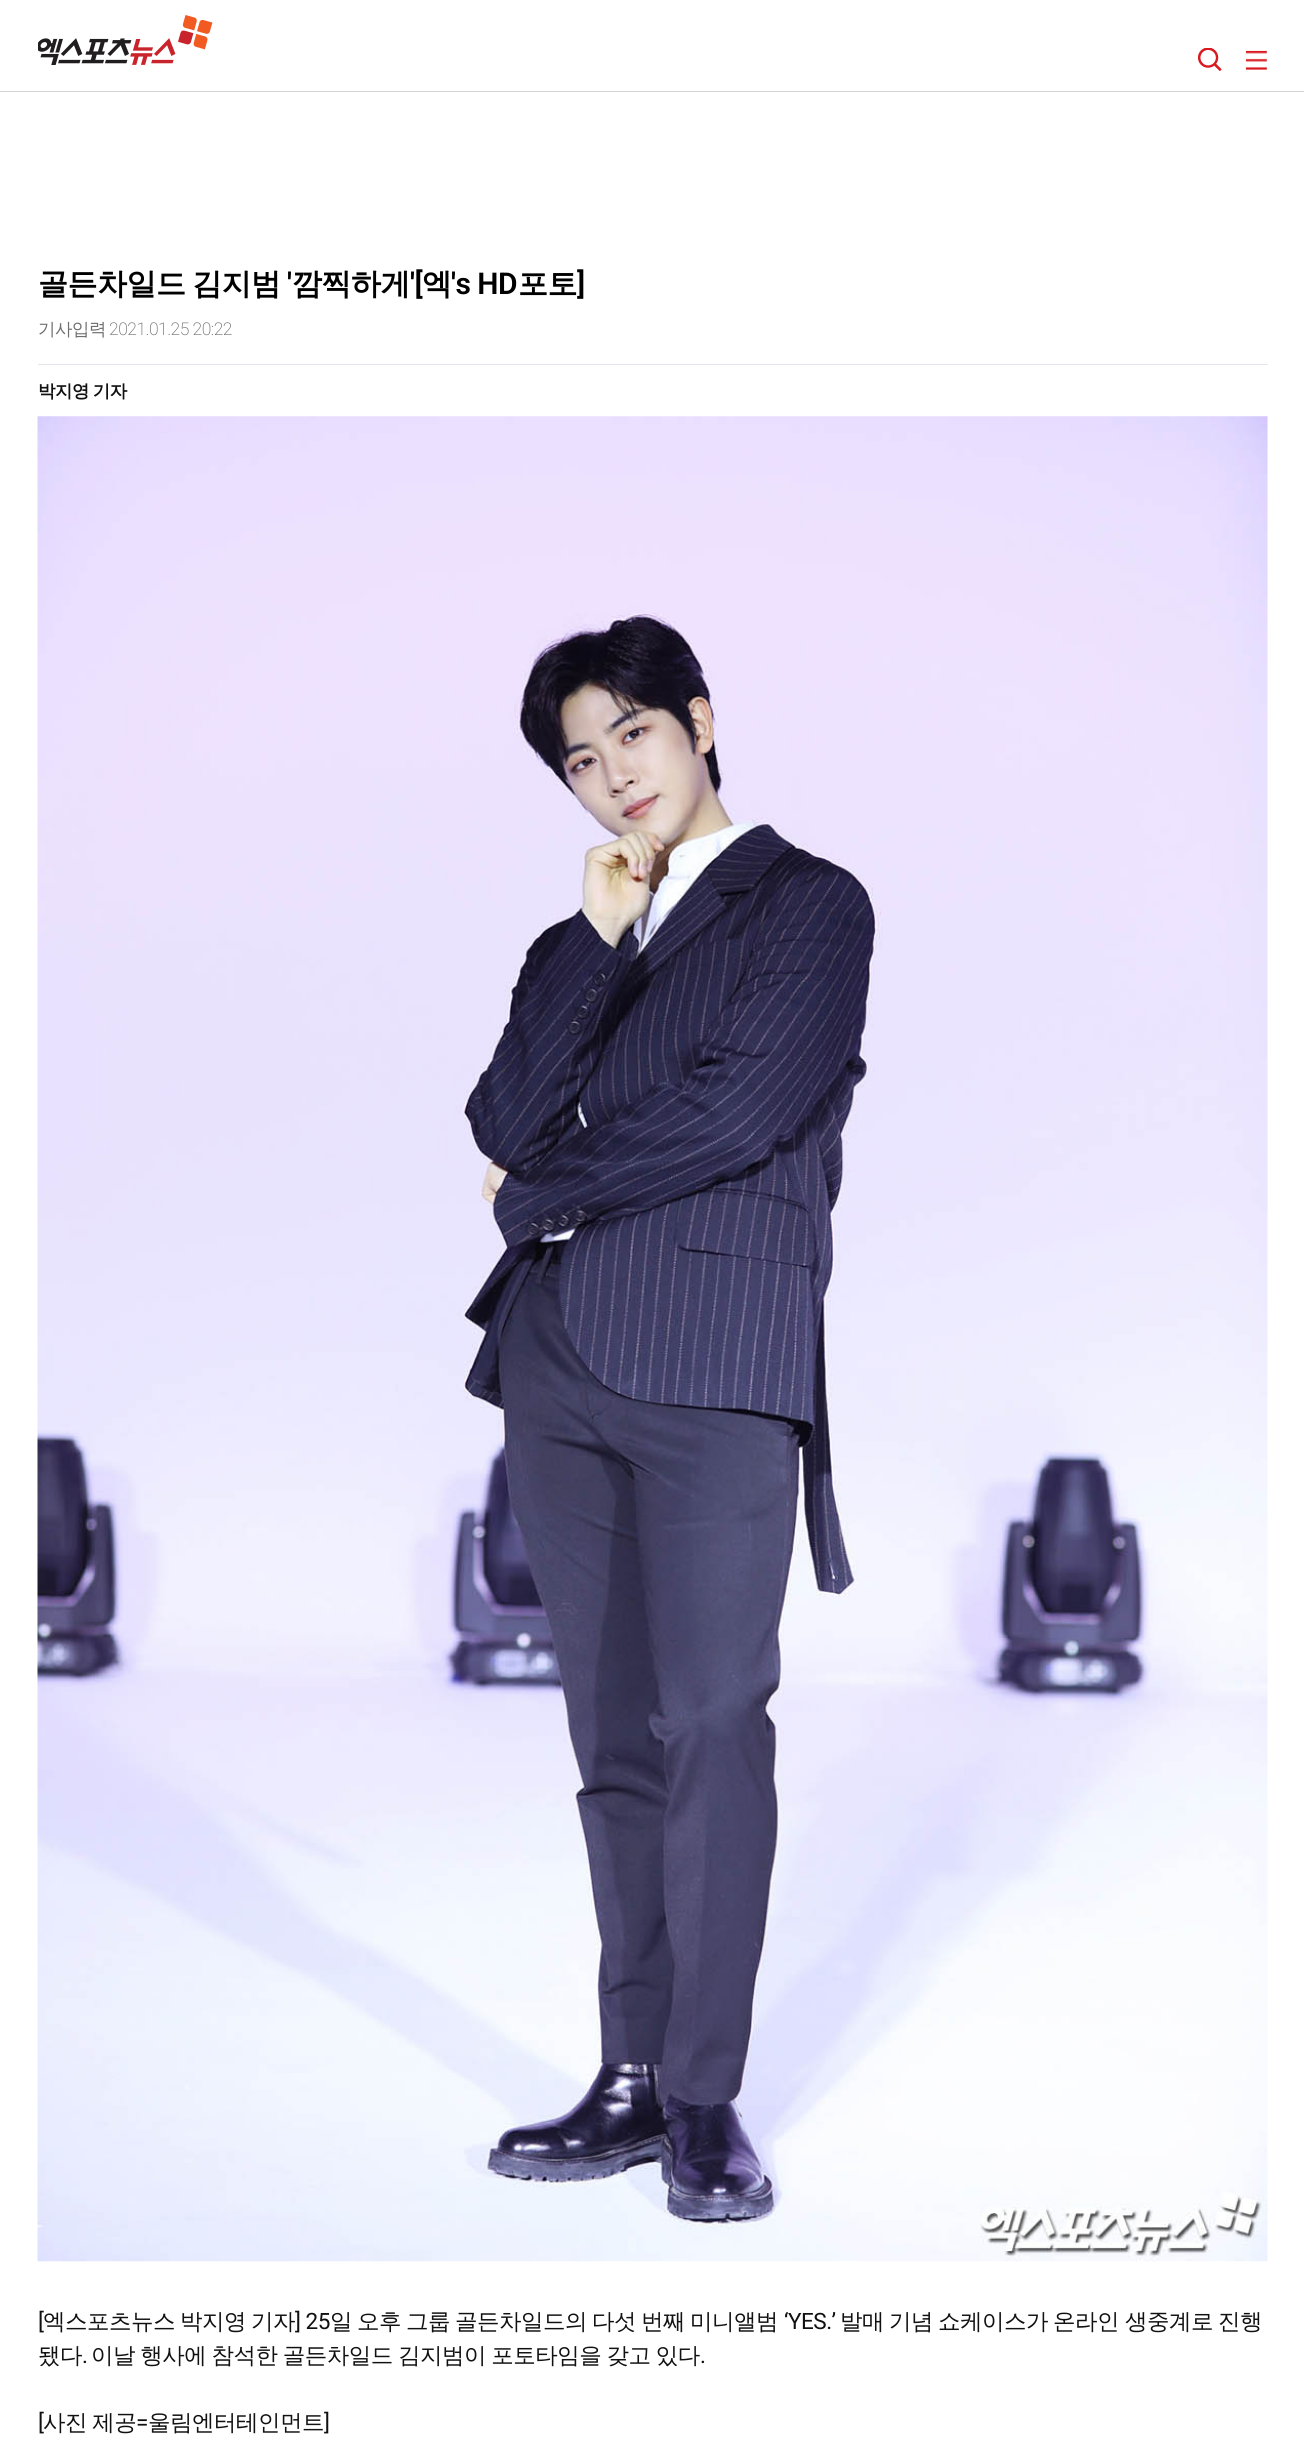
import math
import cairo


def write_spaced(ctx, x, y, s, letter, word):
	ctx.move_to(x, y)
	for ch in s:
		ctx.show_text(ch)
		ctx.rel_move_to(letter + word * (ch == ' '), 0)

def paste(ctx, path, x, y, w, h):
	ctx.save()
	ctx.set_source_surface(cairo.ImageSurface.create_from_png(path), x, y)
	ctx.rectangle(x, y, w, h)
	ctx.fill()
	ctx.restore()

def draw(ctx):
	ctx.set_source_rgb(1, 1, 1)
	ctx.paint()
	ctx.set_source_rgb(0.831, 0.831, 0.831)
	ctx.rectangle(0, 91, 1304, 1)
	ctx.fill()
	paste(ctx, 'media/1.png', 38, 15, 175, 50)
	paste(ctx, 'media/2.png', 1198, 48, 24, 23)
	paste(ctx, 'media/3.png', 1245, 50, 22, 20)
	ctx.set_source_rgb(0.898, 0.906, 0.922)
	ctx.rectangle(38, 364, 1230, 1)
	ctx.fill()
	ctx.select_font_face('WenQuanYi Zen Hei', cairo.FONT_SLANT_NORMAL, cairo.FONT_WEIGHT_BOLD)
	ctx.set_font_size(30)
	ctx.set_source_rgb(0, 0, 0)
	write_spaced(ctx, 38, 294, '골든차일드', -0.5, 0)
	write_spaced(ctx, 192, 294, '김지범', -0.5, 0)
	ctx.select_font_face('Roboto SemiBold')
	write_spaced(ctx, 287, 294, '\'', -0.5, 0)
	ctx.select_font_face('WenQuanYi Zen Hei', cairo.FONT_SLANT_NORMAL, cairo.FONT_WEIGHT_BOLD)
	write_spaced(ctx, 292, 294, '깜찍하게', -0.5, 0)
	ctx.select_font_face('Roboto SemiBold')
	write_spaced(ctx, 410, 294, '\'[', -0.5, 0)
	ctx.select_font_face('WenQuanYi Zen Hei', cairo.FONT_SLANT_NORMAL, cairo.FONT_WEIGHT_BOLD)
	write_spaced(ctx, 422, 294, '엑', -0.5, 0)
	ctx.select_font_face('Roboto SemiBold')
	write_spaced(ctx, 451, 294, '\'s HD', -0.5, 0)
	ctx.select_font_face('WenQuanYi Zen Hei', cairo.FONT_SLANT_NORMAL, cairo.FONT_WEIGHT_BOLD)
	write_spaced(ctx, 518, 294, '포토', -0.5, 0)
	ctx.select_font_face('Roboto SemiBold')
	write_spaced(ctx, 577, 294, ']', -0.5, 0)
	ctx.select_font_face('WenQuanYi Zen Hei Medium')
	ctx.set_font_size(17.5)
	ctx.set_source_rgb(0.435, 0.435, 0.435)
	write_spaced(ctx, 38, 335, '기사입력', -0.5, 0)
	ctx.select_font_face('Roboto ExtraLight')
	write_spaced(ctx, 109, 335, '2021.01.25 20:22', -0.5, 0)
	ctx.select_font_face('WenQuanYi Zen Hei', cairo.FONT_SLANT_NORMAL, cairo.FONT_WEIGHT_BOLD)
	ctx.set_source_rgb(0.067, 0.067, 0.067)
	write_spaced(ctx, 38, 397, '박지영 기자', -0.5, -1)
	paste(ctx, 'media/4.png', 37, 416, 1231, 1846)
	ctx.select_font_face('Roboto')
	ctx.set_font_size(22.5)
	write_spaced(ctx, 38, 2329, '[', -0.5, 0)
	ctx.select_font_face('WenQuanYi Zen Hei Medium')
	for x, y, s in [
		(43, 2329, '엑스포츠뉴스'),
		(180, 2329, '박지영'),
		(251, 2329, '기자'),
	]:
		write_spaced(ctx, x, y, s, -0.5, 0)
	ctx.select_font_face('Roboto')
	write_spaced(ctx, 295, 2329, '] 25', -0.5, 0)
	ctx.select_font_face('WenQuanYi Zen Hei Medium')
	for x, y, s in [
		(330, 2329, '일'),
		(357, 2329, '오후'),
		(406, 2329, '그룹'),
		(455, 2329, '골든차일드의'),
		(592, 2329, '다섯'),
		(641, 2329, '번째'),
		(690, 2329, '미니앨범'),
	]:
		write_spaced(ctx, x, y, s, -0.5, 0)
	ctx.select_font_face('Roboto')
	write_spaced(ctx, 784, 2329, '‘YES.’', -0.5, 0)
	ctx.select_font_face('WenQuanYi Zen Hei Medium')
	for x, y, s in [
		(840, 2329, '발매'),
		(889, 2329, '기념'),
		(938, 2329, '쇼케이스가'),
		(1053, 2329, '온라인'),
		(1125, 2329, '생중계로'),
		(1218, 2329, '진행'),
		(38, 2363, '됐다'),
	]:
		write_spaced(ctx, x, y, s, -0.5, 0)
	ctx.select_font_face('Roboto')
	write_spaced(ctx, 82, 2363, '.', -0.5, 0)
	ctx.select_font_face('WenQuanYi Zen Hei Medium')
	write_spaced(ctx, 91, 2363, '이날 행사에 참석한 골든차일드 김지범이 포토타임을 갖고 있다', -0.5, -1)
	ctx.select_font_face('Roboto')
	write_spaced(ctx, 700, 2363, '.', -0.5, 0)
	write_spaced(ctx, 38, 2430, '[', -0.5, 0)
	ctx.select_font_face('WenQuanYi Zen Hei Medium')
	write_spaced(ctx, 43, 2430, '사진 제공', -0.5, -1)
	ctx.select_font_face('Roboto')
	write_spaced(ctx, 136, 2430, '=', -0.5, 0)
	ctx.select_font_face('WenQuanYi Zen Hei Medium')
	write_spaced(ctx, 148, 2430, '울림엔터테인먼트', -0.5, 0)
	ctx.select_font_face('Roboto')
	write_spaced(ctx, 324, 2430, ']', -0.5, 0)


surface = cairo.ImageSurface(cairo.FORMAT_RGB24, 1304, 2447)
ctx = cairo.Context(surface)
options = cairo.FontOptions()
options.set_hint_metrics(cairo.HINT_METRICS_OFF)
options.set_hint_style(cairo.HINT_STYLE_NONE)
ctx.set_font_options(options)
ctx.set_miter_limit(4)
draw(ctx)
surface.write_to_png('image.png')
